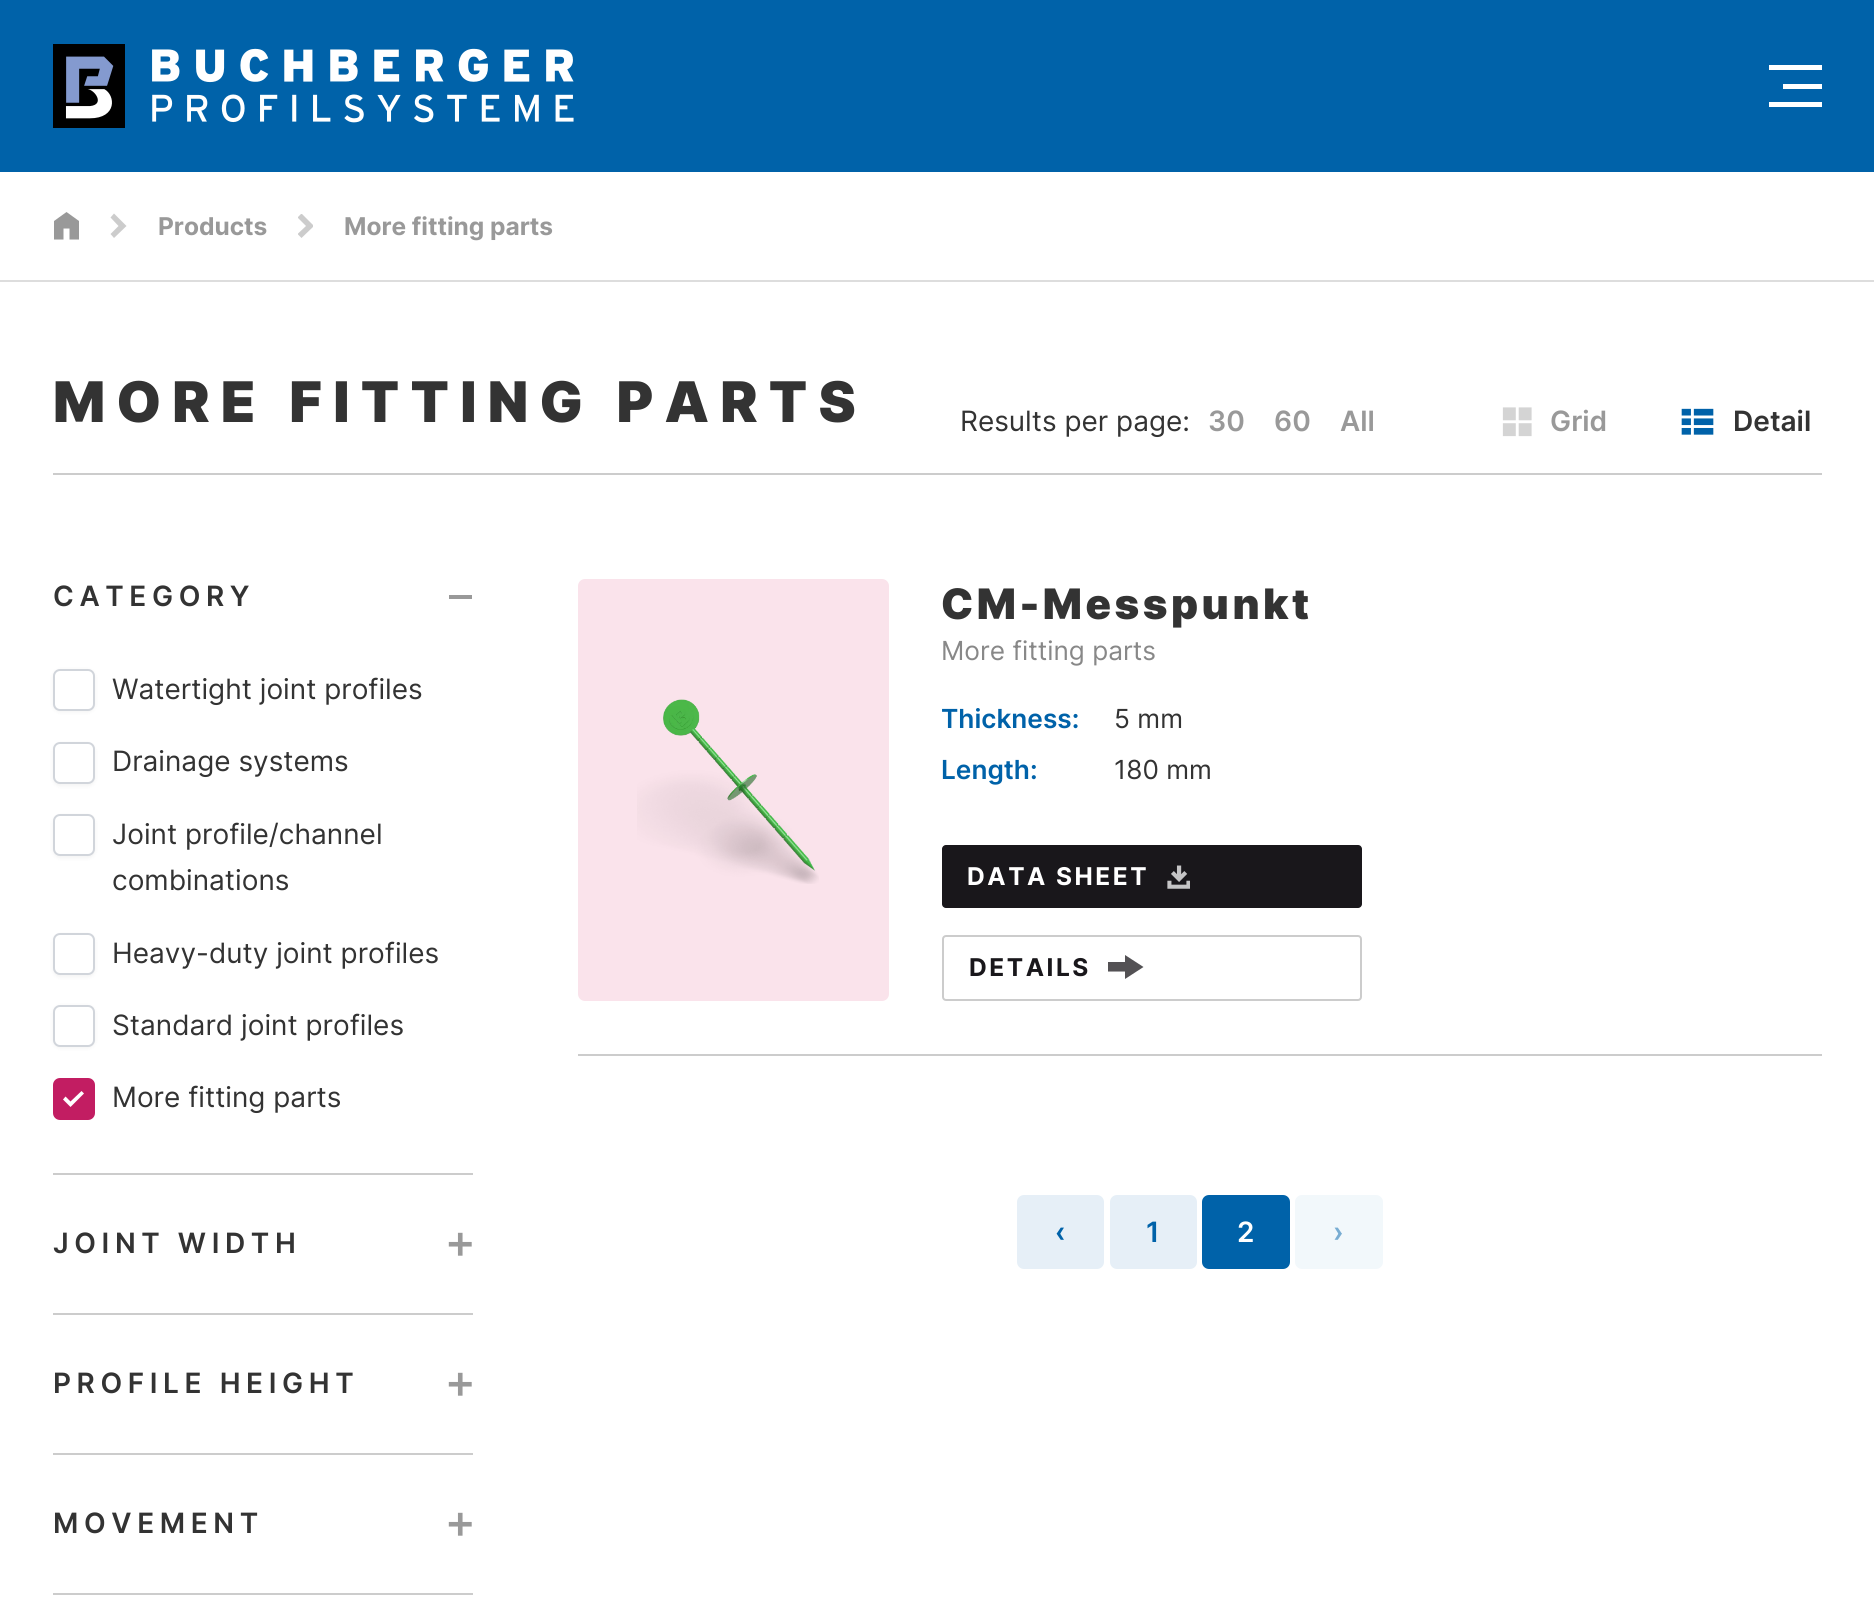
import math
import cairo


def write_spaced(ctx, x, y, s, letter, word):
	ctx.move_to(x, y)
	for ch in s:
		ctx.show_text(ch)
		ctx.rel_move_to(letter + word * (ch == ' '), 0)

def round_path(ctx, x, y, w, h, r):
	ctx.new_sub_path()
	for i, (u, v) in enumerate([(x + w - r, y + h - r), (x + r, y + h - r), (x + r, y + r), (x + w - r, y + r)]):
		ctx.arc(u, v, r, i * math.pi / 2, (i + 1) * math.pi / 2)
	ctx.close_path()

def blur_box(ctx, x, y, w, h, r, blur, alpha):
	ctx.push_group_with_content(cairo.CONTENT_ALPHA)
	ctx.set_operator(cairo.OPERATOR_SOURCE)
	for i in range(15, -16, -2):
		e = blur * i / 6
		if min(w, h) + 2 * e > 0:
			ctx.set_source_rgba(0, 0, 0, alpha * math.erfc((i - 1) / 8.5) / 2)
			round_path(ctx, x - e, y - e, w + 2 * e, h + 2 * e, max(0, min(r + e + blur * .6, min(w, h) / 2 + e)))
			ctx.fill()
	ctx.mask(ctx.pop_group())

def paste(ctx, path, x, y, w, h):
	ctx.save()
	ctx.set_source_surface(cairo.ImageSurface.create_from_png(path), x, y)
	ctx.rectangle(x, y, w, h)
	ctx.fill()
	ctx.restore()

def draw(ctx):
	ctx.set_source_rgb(1, 1, 1)
	ctx.paint()
	ctx.set_source_rgb(0, 0.384, 0.663)
	ctx.rectangle(0, 0, 1874, 172)
	ctx.fill()
	paste(ctx, 'media/1.png', 53, 44, 521, 84)
	ctx.set_source_rgb(1, 1, 1)
	ctx.rectangle(1769, 65, 53, 5)
	ctx.rectangle(1783, 84, 39, 5)
	ctx.rectangle(1769, 102, 53, 5)
	ctx.fill()
	ctx.set_source_rgb(0.867, 0.867, 0.867)
	ctx.rectangle(0, 280, 1874, 2)
	ctx.fill()
	ctx.set_source_rgb(0.6, 0.6, 0.6)
	ctx.new_path()
	ctx.move_to(54, 239.5)
	ctx.line_to(54, 221)
	ctx.line_to(66.5, 212)
	ctx.line_to(79, 221)
	ctx.line_to(79, 239.5)
	ctx.line_to(69.5, 239.5)
	ctx.line_to(69.5, 228.5)
	ctx.line_to(63.5, 228.5)
	ctx.line_to(63.5, 239.5)
	ctx.close_path()
	ctx.fill()
	ctx.set_source_rgb(0.8, 0.8, 0.8)
	ctx.new_path()
	ctx.move_to(126.5, 226)
	ctx.line_to(114, 238)
	ctx.line_to(110.5, 234)
	ctx.line_to(118.5, 226)
	ctx.line_to(110.5, 217.5)
	ctx.line_to(114, 213.5)
	ctx.close_path()
	ctx.fill()
	ctx.select_font_face('Inter', cairo.FONT_SLANT_NORMAL, cairo.FONT_WEIGHT_BOLD)
	ctx.set_font_size(24.5)
	ctx.set_source_rgb(0.6, 0.6, 0.6)
	ctx.move_to(158, 235)
	ctx.show_text('Products')
	ctx.save()
	ctx.rectangle(298, 214, 15, 24)
	ctx.clip()
	ctx.set_source_rgb(0.8, 0.8, 0.8)
	ctx.new_path()
	ctx.move_to(314, 226)
	ctx.line_to(301.5, 238)
	ctx.line_to(297.5, 234)
	ctx.line_to(306, 226)
	ctx.line_to(297.5, 217.5)
	ctx.line_to(301.5, 213.5)
	ctx.close_path()
	ctx.fill()
	ctx.restore()
	ctx.move_to(344, 235)
	ctx.show_text('More fitting parts')
	ctx.set_source_rgb(0.8, 0.8, 0.8)
	ctx.rectangle(53, 473, 1769, 2)
	ctx.fill()
	ctx.select_font_face('Inter Black')
	ctx.set_font_size(56)
	ctx.set_source_rgb(0.2, 0.2, 0.2)
	write_spaced(ctx, 53, 422, 'MORE FITTING PARTS', 11.25, 0)
	ctx.select_font_face('Inter')
	ctx.set_font_size(28)
	ctx.move_to(960, 431)
	ctx.show_text('Results per page:')
	ctx.select_font_face('Inter SemiBold')
	ctx.set_source_rgb(0.6, 0.6, 0.6)
	for x, y, s in [
		(1208, 431, '30'),
		(1274, 431, '60'),
		(1340, 431, 'All'),
	]:
		ctx.move_to(x, y)
		ctx.show_text(s)
	paste(ctx, 'media/2.png', 1502, 407, 30, 30)
	ctx.move_to(1550, 431)
	ctx.show_text('Grid')
	paste(ctx, 'media/3.png', 1681, 408, 33, 27)
	ctx.set_source_rgb(0.2, 0.2, 0.2)
	ctx.move_to(1733, 431)
	ctx.show_text('Detail')
	write_spaced(ctx, 53, 606, 'CATEGORY', 5.6, 0)
	ctx.set_source_rgb(0.6, 0.6, 0.6)
	ctx.rectangle(449, 595, 23, 4)
	ctx.fill()
	ctx.set_source_rgb(0, 0, 0)
	blur_box(ctx, 53, 670, 42, 42, 7, 2, 0.05)
	ctx.set_source_rgb(1, 1, 1)
	round_path(ctx, 54, 670, 40, 40, 6)
	ctx.fill_preserve()
	ctx.set_source_rgb(0.82, 0.835, 0.859)
	ctx.stroke()
	ctx.select_font_face('Inter')
	ctx.set_source_rgb(0.2, 0.2, 0.2)
	ctx.move_to(112, 699)
	ctx.show_text('Watertight joint profiles')
	ctx.set_source_rgb(0, 0, 0)
	blur_box(ctx, 53, 744, 42, 42, 7, 2, 0.05)
	ctx.set_source_rgb(1, 1, 1)
	round_path(ctx, 54, 743, 40, 40, 6)
	ctx.fill_preserve()
	ctx.set_source_rgb(0.82, 0.835, 0.859)
	ctx.stroke()
	ctx.set_source_rgb(0.2, 0.2, 0.2)
	ctx.move_to(112, 771)
	ctx.show_text('Drainage systems')
	ctx.set_source_rgb(0, 0, 0)
	blur_box(ctx, 53, 816, 42, 42, 7, 2, 0.05)
	ctx.set_source_rgb(1, 1, 1)
	round_path(ctx, 54, 815, 40, 40, 6)
	ctx.fill_preserve()
	ctx.set_source_rgb(0.82, 0.835, 0.859)
	ctx.stroke()
	ctx.set_source_rgb(0.2, 0.2, 0.2)
	ctx.move_to(112, 844)
	ctx.show_text('Joint profile/channel')
	ctx.move_to(112, 890)
	ctx.show_text('combinations')
	ctx.set_source_rgb(0, 0, 0)
	blur_box(ctx, 53, 935, 42, 42, 7, 2, 0.05)
	ctx.set_source_rgb(1, 1, 1)
	round_path(ctx, 54, 934, 40, 40, 6)
	ctx.fill_preserve()
	ctx.set_source_rgb(0.82, 0.835, 0.859)
	ctx.stroke()
	ctx.set_source_rgb(0.2, 0.2, 0.2)
	ctx.move_to(112, 963)
	ctx.show_text('Heavy-duty joint profiles')
	ctx.set_source_rgb(0, 0, 0)
	blur_box(ctx, 53, 1006, 42, 42, 7, 2, 0.05)
	ctx.set_source_rgb(1, 1, 1)
	round_path(ctx, 54, 1006, 40, 40, 6)
	ctx.fill_preserve()
	ctx.set_source_rgb(0.82, 0.835, 0.859)
	ctx.stroke()
	ctx.set_source_rgb(0.2, 0.2, 0.2)
	ctx.move_to(112, 1035)
	ctx.show_text('Standard joint profiles')
	ctx.set_source_rgb(0.761, 0.114, 0.384)
	round_path(ctx, 53, 1078, 42, 42, 7)
	ctx.fill()
	ctx.set_source_rgb(1, 1, 1)
	ctx.new_path()
	ctx.move_to(70.5, 1107)
	ctx.line_to(63, 1099.5)
	ctx.line_to(65.5, 1096.5)
	ctx.line_to(70.5, 1101.5)
	ctx.line_to(81.5, 1091)
	ctx.line_to(84, 1093.5)
	ctx.close_path()
	ctx.fill()
	ctx.set_source_rgb(0.2, 0.2, 0.2)
	ctx.move_to(112, 1107)
	ctx.show_text('More fitting parts')
	ctx.set_source_rgb(0.8, 0.8, 0.8)
	ctx.rectangle(53, 1173, 420, 2)
	ctx.fill()
	ctx.select_font_face('Inter SemiBold')
	ctx.set_source_rgb(0.2, 0.2, 0.2)
	write_spaced(ctx, 53, 1253, 'JOINT WIDTH', 5.6, 0)
	paste(ctx, 'media/4.png', 448, 1232, 24, 24)
	ctx.set_source_rgb(0.8, 0.8, 0.8)
	ctx.rectangle(53, 1313, 420, 2)
	ctx.fill()
	ctx.set_source_rgb(0.2, 0.2, 0.2)
	write_spaced(ctx, 53, 1393, 'PROFILE HEIGHT', 5.6, 0)
	paste(ctx, 'media/4.png', 448, 1372, 24, 24)
	ctx.set_source_rgb(0.8, 0.8, 0.8)
	ctx.rectangle(53, 1453, 420, 2)
	ctx.fill()
	ctx.set_source_rgb(0.2, 0.2, 0.2)
	write_spaced(ctx, 53, 1533, 'MOVEMENT', 5.6, 0)
	paste(ctx, 'media/4.png', 448, 1512, 24, 24)
	ctx.set_source_rgb(0.8, 0.8, 0.8)
	ctx.rectangle(53, 1593, 420, 2)
	ctx.fill()
	ctx.rectangle(578, 1054, 1244, 2)
	ctx.fill()
	ctx.set_source_rgb(0.98, 0.89, 0.918)
	round_path(ctx, 578, 579, 311, 422, 7)
	ctx.fill()
	paste(ctx, 'media/5.png', 637, 699, 182, 185)
	ctx.select_font_face('Inter Black')
	ctx.set_font_size(42)
	ctx.set_source_rgb(0.2, 0.2, 0.2)
	write_spaced(ctx, 941, 619, 'CM-Messpunkt', 3.5, 0)
	ctx.select_font_face('Inter')
	ctx.set_font_size(26.25)
	ctx.set_source_rgb(0.533, 0.533, 0.533)
	ctx.move_to(941, 660)
	ctx.show_text('More fitting parts')
	ctx.select_font_face('Inter SemiBold')
	ctx.set_source_rgb(0, 0.384, 0.663)
	ctx.move_to(941, 728)
	ctx.show_text('Thickness:')
	ctx.select_font_face('Inter')
	ctx.set_source_rgb(0.2, 0.2, 0.2)
	ctx.move_to(1114, 728)
	ctx.show_text('5 mm')
	ctx.select_font_face('Inter SemiBold')
	ctx.set_source_rgb(0, 0.384, 0.663)
	ctx.move_to(941, 779)
	ctx.show_text('Length:')
	ctx.select_font_face('Inter')
	ctx.set_source_rgb(0.2, 0.2, 0.2)
	ctx.move_to(1114, 779)
	ctx.show_text('180 mm')
	ctx.set_source_rgb(0.098, 0.09, 0.106)
	round_path(ctx, 942, 845, 420, 63, 4)
	ctx.fill()
	ctx.select_font_face('Inter', cairo.FONT_SLANT_NORMAL, cairo.FONT_WEIGHT_BOLD)
	ctx.set_font_size(24.5)
	ctx.set_source_rgb(1, 1, 1)
	write_spaced(ctx, 967, 885, 'DATA SHEET', 2.5, 0)
	paste(ctx, 'media/6.png', 1167, 865, 23, 24)
	round_path(ctx, 943, 936, 418, 64, 3)
	ctx.set_source_rgb(0.8, 0.8, 0.8)
	ctx.stroke()
	ctx.set_source_rgb(0.098, 0.09, 0.106)
	write_spaced(ctx, 969, 976, 'DETAILS', 2.5, 0)
	ctx.save()
	ctx.rectangle(1108, 954, 37, 26)
	ctx.clip()
	ctx.set_source_rgb(0.325, 0.318, 0.329)
	ctx.new_path()
	ctx.move_to(1125, 971.5)
	ctx.line_to(1107.5, 971.5)
	ctx.line_to(1107.5, 962)
	ctx.line_to(1125, 962)
	ctx.line_to(1125, 955)
	ctx.line_to(1143.5, 967)
	ctx.line_to(1125, 979)
	ctx.close_path()
	ctx.fill()
	ctx.restore()
	ctx.set_source_rgb(0.902, 0.937, 0.965)
	round_path(ctx, 1017, 1195, 87, 74, 7)
	ctx.fill()
	ctx.select_font_face('Inter SemiBold')
	ctx.set_font_size(28)
	ctx.set_source_rgb(0, 0.384, 0.663)
	ctx.move_to(1055, 1242)
	ctx.show_text('‹')
	ctx.set_source_rgb(0.902, 0.937, 0.965)
	round_path(ctx, 1110, 1195, 87, 74, 7)
	ctx.fill()
	ctx.set_source_rgb(0, 0.384, 0.663)
	ctx.move_to(1146, 1242)
	ctx.show_text('1')
	round_path(ctx, 1202, 1195, 88, 74, 7)
	ctx.fill()
	ctx.set_source_rgb(1, 1, 1)
	ctx.move_to(1237, 1242)
	ctx.show_text('2')
	ctx.set_source_rgb(0.949, 0.969, 0.984)
	round_path(ctx, 1295, 1195, 88, 74, 7)
	ctx.fill()
	ctx.set_source_rgb(0.475, 0.678, 0.824)
	ctx.move_to(1333, 1242)
	ctx.show_text('›')


surface = cairo.ImageSurface(cairo.FORMAT_RGB24, 1874, 1609)
ctx = cairo.Context(surface)
options = cairo.FontOptions()
options.set_hint_metrics(cairo.HINT_METRICS_OFF)
options.set_hint_style(cairo.HINT_STYLE_NONE)
ctx.set_font_options(options)
ctx.set_miter_limit(4)
draw(ctx)
surface.write_to_png('image.png')
